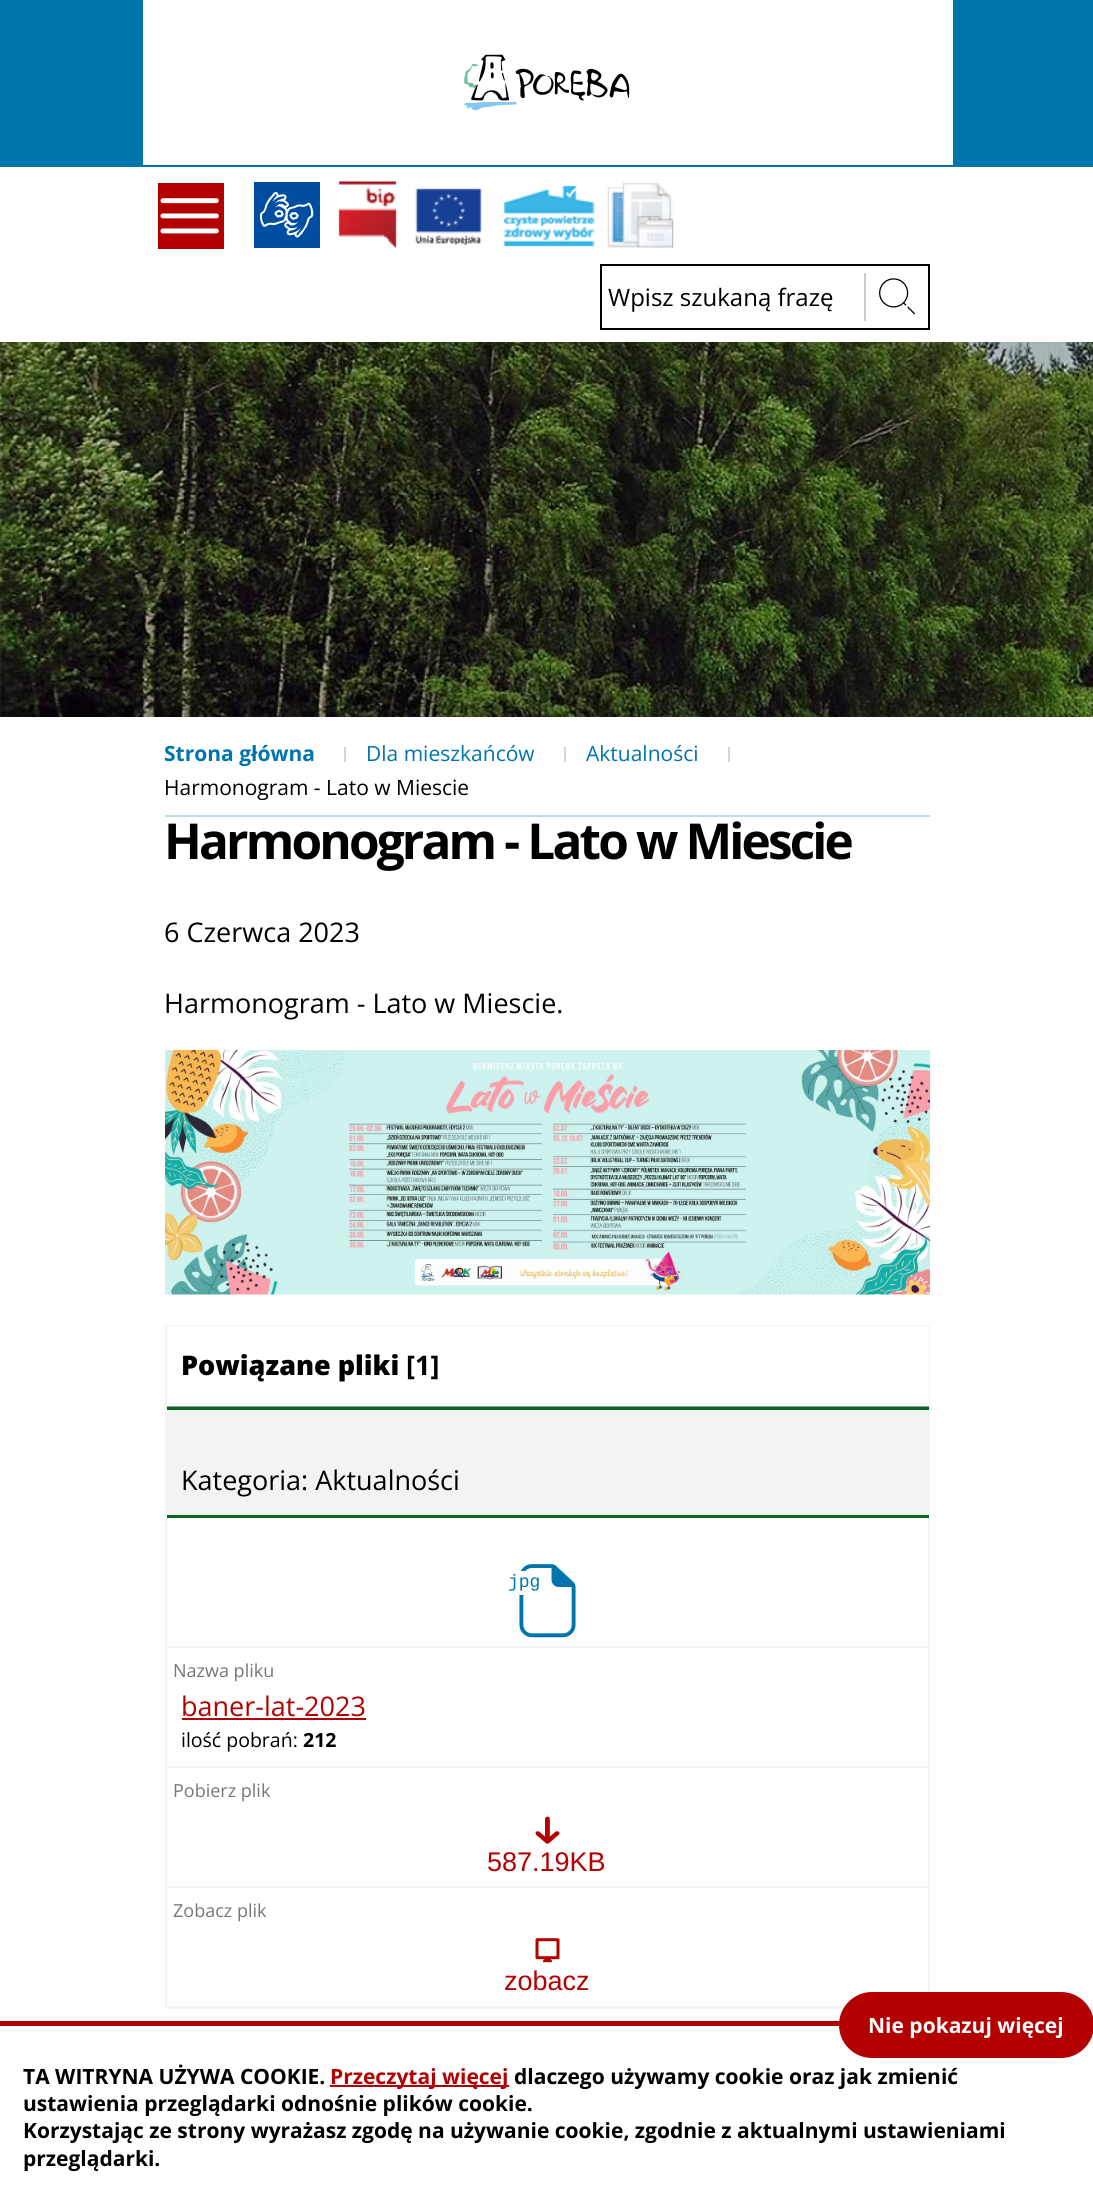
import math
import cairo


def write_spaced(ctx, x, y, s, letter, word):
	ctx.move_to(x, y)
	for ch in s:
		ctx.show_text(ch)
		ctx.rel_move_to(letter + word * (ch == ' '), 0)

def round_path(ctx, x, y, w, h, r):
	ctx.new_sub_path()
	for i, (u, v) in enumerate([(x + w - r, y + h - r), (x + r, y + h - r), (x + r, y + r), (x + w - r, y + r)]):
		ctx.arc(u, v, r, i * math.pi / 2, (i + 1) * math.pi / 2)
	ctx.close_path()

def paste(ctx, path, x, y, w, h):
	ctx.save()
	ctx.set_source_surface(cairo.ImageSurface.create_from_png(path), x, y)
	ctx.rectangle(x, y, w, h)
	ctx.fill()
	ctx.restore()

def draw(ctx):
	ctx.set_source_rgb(1, 1, 1)
	ctx.paint()
	ctx.set_source_rgb(0, 0.455, 0.678)
	ctx.rectangle(143, 165, 810, 2)
	ctx.fill()
	ctx.rectangle(0, 0, 143, 167)
	ctx.fill()
	paste(ctx, 'media/1.png', 464, 54, 166, 57)
	ctx.rectangle(953, 0, 140, 167)
	ctx.fill()
	ctx.set_source_rgb(0.702, 0, 0)
	ctx.rectangle(158, 183, 66, 66)
	ctx.fill()
	paste(ctx, 'media/2.png', 160, 198, 59, 36)
	ctx.set_source_rgb(0, 0.306, 0.635)
	ctx.rectangle(254, 182, 66, 66)
	ctx.fill()
	paste(ctx, 'media/3.png', 259, 192, 55, 46)
	paste(ctx, 'media/4.png', 338, 181, 59, 67)
	paste(ctx, 'media/5.png', 415, 188, 67, 57)
	paste(ctx, 'media/6.png', 503, 185, 92, 62)
	paste(ctx, 'media/7.png', 607, 183, 67, 65)
	ctx.rectangle(601, 265, 328, 64)
	ctx.set_source_rgb(0, 0, 0)
	ctx.stroke()
	ctx.select_font_face('Open Sans')
	ctx.set_font_size(24)
	ctx.move_to(608, 306)
	ctx.show_text('Wpisz szukaną frazę')
	ctx.set_source_rgb(0.8, 0.8, 0.8)
	ctx.rectangle(864, 273, 2, 48)
	ctx.fill()
	paste(ctx, 'media/8.png', 879, 278, 36, 37)
	paste(ctx, 'media/9.png', 0, 342, 1093, 375)
	ctx.select_font_face('Open Sans', cairo.FONT_SLANT_NORMAL, cairo.FONT_WEIGHT_BOLD)
	ctx.set_font_size(21)
	ctx.set_source_rgb(0, 0.455, 0.678)
	ctx.move_to(164, 761)
	ctx.show_text('Strona główna')
	ctx.set_source_rgb(0.831, 0.831, 0.831)
	ctx.rectangle(344, 747, 2, 15)
	ctx.fill()
	ctx.select_font_face('Open Sans')
	ctx.set_source_rgb(0, 0.455, 0.678)
	ctx.move_to(366, 761)
	ctx.show_text('Dla mieszkańców')
	ctx.set_source_rgb(0.831, 0.831, 0.831)
	ctx.rectangle(564, 747, 2, 15)
	ctx.fill()
	ctx.set_source_rgb(0, 0.455, 0.678)
	ctx.move_to(586, 761)
	ctx.show_text('Aktualności')
	ctx.set_source_rgb(0.831, 0.831, 0.831)
	ctx.rectangle(728, 747, 2, 15)
	ctx.fill()
	ctx.set_source_rgb(0, 0, 0)
	ctx.move_to(164, 795)
	ctx.show_text('Harmonogram - Lato w Miescie')
	ctx.set_source_rgb(0.749, 0.863, 0.922)
	ctx.rectangle(165, 815, 765, 2)
	ctx.fill()
	ctx.select_font_face('Open Sans', cairo.FONT_SLANT_NORMAL, cairo.FONT_WEIGHT_BOLD)
	ctx.set_font_size(49.5)
	ctx.set_source_rgb(0, 0, 0)
	write_spaced(ctx, 164, 859, 'Harmonogram - Lato w Miescie', -2.85, 0)
	ctx.select_font_face('Open Sans')
	ctx.set_font_size(27)
	ctx.move_to(164, 942)
	ctx.show_text('6 Czerwca 2023')
	ctx.move_to(164, 1013)
	ctx.show_text('Harmonogram - Lato w Miescie.')
	paste(ctx, 'media/10.png', 165, 1050, 765, 245)
	ctx.rectangle(166, 1326, 763, 682)
	ctx.set_source_rgb(0.957, 0.957, 0.957)
	ctx.stroke()
	ctx.set_source_rgb(1, 1, 1)
	ctx.rectangle(167, 1326, 762, 80)
	ctx.fill()
	ctx.set_source_rgb(0.6, 0.6, 0.6)
	ctx.rectangle(167, 1406, 762, 1)
	ctx.fill()
	ctx.select_font_face('Open Sans ExtraBold')
	ctx.set_source_rgb(0, 0, 0)
	ctx.move_to(181, 1375)
	ctx.show_text('Powiązane pliki')
	ctx.select_font_face('Open Sans', cairo.FONT_SLANT_NORMAL, cairo.FONT_WEIGHT_BOLD)
	ctx.move_to(406, 1375)
	ctx.show_text('[1]')
	ctx.set_source_rgb(0.953, 0.953, 0.953)
	ctx.rectangle(167, 1410, 761, 104)
	ctx.fill()
	ctx.set_source_rgb(0, 0.412, 0.129)
	ctx.rectangle(167, 1407, 762, 3)
	ctx.fill()
	ctx.set_source_rgb(0.957, 0.957, 0.957)
	ctx.rectangle(167, 1514, 762, 1)
	ctx.fill()
	ctx.select_font_face('Open Sans')
	ctx.set_source_rgb(0, 0, 0)
	ctx.move_to(181, 1490)
	ctx.show_text('Kategoria: Aktualności')
	ctx.set_source_rgb(0, 0.412, 0.129)
	ctx.rectangle(167, 1515, 762, 3)
	ctx.fill()
	ctx.set_source_rgb(0.957, 0.957, 0.957)
	ctx.rectangle(167, 1646, 762, 2)
	ctx.fill()
	paste(ctx, 'media/11.png', 519, 1564, 57, 74)
	ctx.set_source_rgb(1, 1, 1)
	round_path(ctx, 506, 1571, 39, 24, 6)
	ctx.fill()
	ctx.select_font_face('Liberation Mono')
	ctx.set_font_size(18)
	ctx.set_source_rgb(0, 0.455, 0.678)
	ctx.move_to(508, 1587)
	ctx.show_text('jpg')
	ctx.set_source_rgb(0.957, 0.957, 0.957)
	ctx.rectangle(167, 1766, 762, 2)
	ctx.fill()
	ctx.select_font_face('Open Sans')
	ctx.set_source_rgb(0.463, 0.463, 0.463)
	ctx.move_to(173, 1677)
	ctx.show_text('Nazwa pliku')
	ctx.set_font_size(27)
	ctx.set_source_rgb(0.702, 0, 0)
	ctx.move_to(181, 1716)
	ctx.show_text('baner-lat-2023')
	ctx.rectangle(182, 1718, 184, 2)
	ctx.fill()
	ctx.set_font_size(19.5)
	ctx.set_source_rgb(0, 0, 0)
	ctx.move_to(181, 1747)
	ctx.show_text('ilość pobrań:')
	ctx.select_font_face('Open Sans', cairo.FONT_SLANT_NORMAL, cairo.FONT_WEIGHT_BOLD)
	ctx.move_to(303, 1747)
	ctx.show_text('212')
	ctx.set_source_rgb(0.957, 0.957, 0.957)
	ctx.rectangle(167, 1886, 762, 2)
	ctx.fill()
	ctx.select_font_face('Open Sans')
	ctx.set_font_size(18)
	ctx.set_source_rgb(0.463, 0.463, 0.463)
	ctx.move_to(173, 1797)
	ctx.show_text('Pobierz plik')
	paste(ctx, 'media/12.png', 535, 1816, 25, 28)
	ctx.select_font_face('Liberation Sans')
	ctx.set_font_size(27)
	ctx.set_source_rgb(0.702, 0, 0)
	ctx.move_to(487, 1871)
	ctx.show_text('587.19KB')
	ctx.set_source_rgb(0.957, 0.957, 0.957)
	ctx.rectangle(167, 2006, 678, 1)
	ctx.fill()
	ctx.select_font_face('Open Sans')
	ctx.set_font_size(18)
	ctx.set_source_rgb(0.463, 0.463, 0.463)
	ctx.move_to(173, 1917)
	ctx.show_text('Zobacz plik')
	paste(ctx, 'media/13.png', 535, 1938, 25, 25)
	ctx.select_font_face('Liberation Sans')
	ctx.set_font_size(27)
	ctx.set_source_rgb(0.702, 0, 0)
	ctx.move_to(504, 1990)
	ctx.show_text('zobacz')
	ctx.rectangle(0, 2021, 840, 5)
	ctx.fill()
	round_path(ctx, 839, 1992, 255, 66, 33)
	ctx.fill()
	ctx.select_font_face('Open Sans', cairo.FONT_SLANT_NORMAL, cairo.FONT_WEIGHT_BOLD)
	ctx.set_font_size(21)
	ctx.set_source_rgb(1, 1, 1)
	ctx.move_to(868, 2033)
	ctx.show_text('Nie pokazuj więcej')
	ctx.set_source_rgb(0, 0, 0)
	ctx.move_to(23, 2084)
	ctx.show_text('TA WITRYNA UŻYWA COOKIE.')
	ctx.set_source_rgb(0.702, 0, 0)
	ctx.rectangle(330, 2085, 179, 2)
	ctx.fill()
	ctx.move_to(330, 2084)
	ctx.show_text('Przeczytaj więcej')
	ctx.set_source_rgb(0, 0, 0)
	for x, y, s in [
		(514, 2084, 'dlaczego używamy cookie oraz jak zmienić'),
		(23, 2111, 'ustawienia przeglądarki odnośnie plików cookie.'),
		(23, 2138, 'Korzystając ze strony wyrażasz zgodę na używanie cookie, zgodnie z aktualnymi ustawieniami'),
		(23, 2166, 'przeglądarki.'),
	]:
		ctx.move_to(x, y)
		ctx.show_text(s)


surface = cairo.ImageSurface(cairo.FORMAT_RGB24, 1093, 2209)
ctx = cairo.Context(surface)
options = cairo.FontOptions()
options.set_hint_metrics(cairo.HINT_METRICS_OFF)
options.set_hint_style(cairo.HINT_STYLE_NONE)
ctx.set_font_options(options)
ctx.set_miter_limit(4)
draw(ctx)
surface.write_to_png('image.png')
